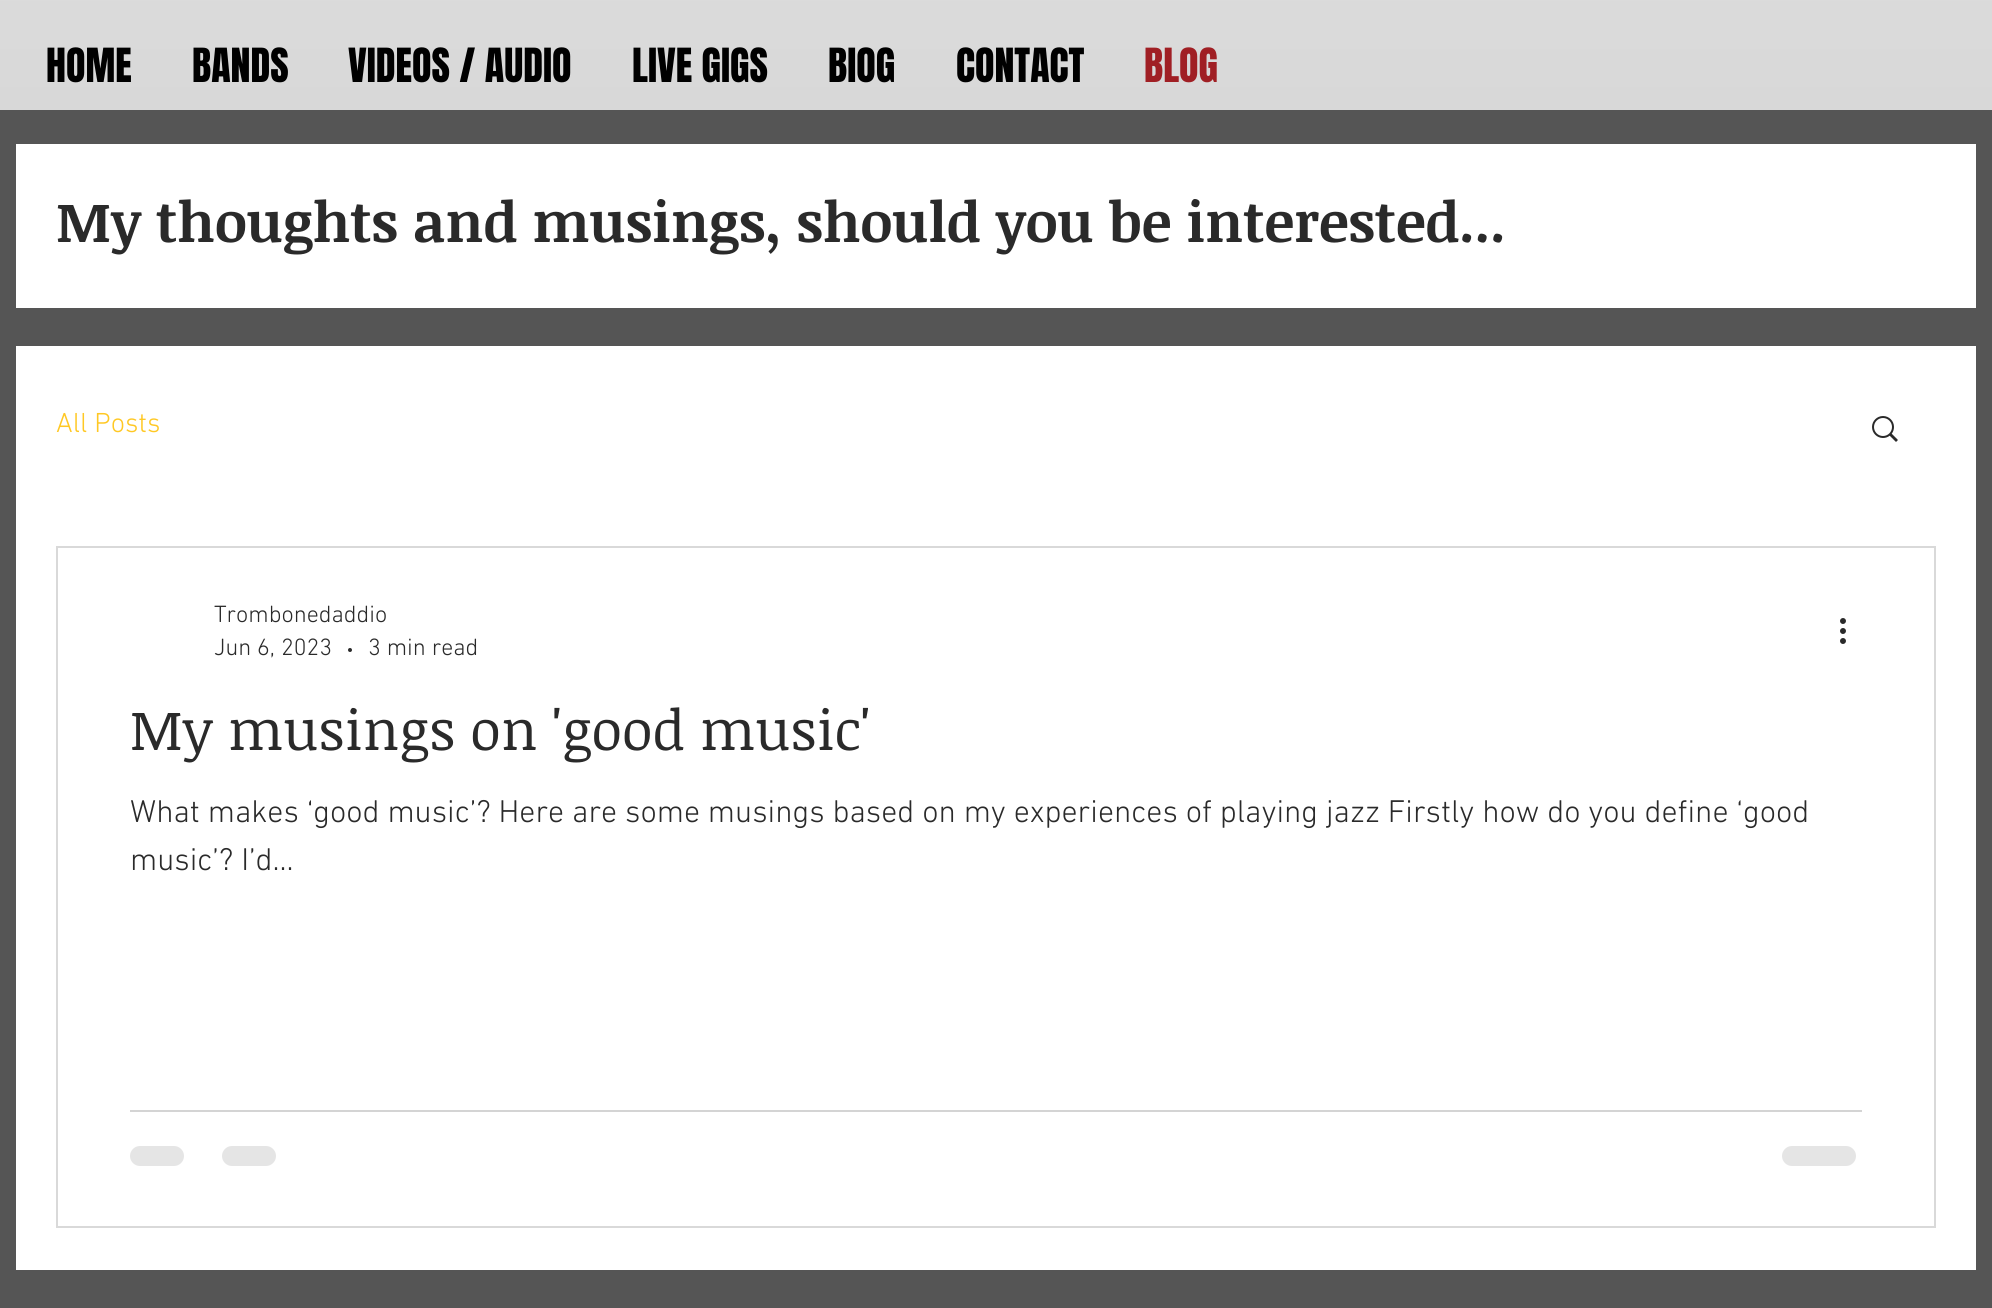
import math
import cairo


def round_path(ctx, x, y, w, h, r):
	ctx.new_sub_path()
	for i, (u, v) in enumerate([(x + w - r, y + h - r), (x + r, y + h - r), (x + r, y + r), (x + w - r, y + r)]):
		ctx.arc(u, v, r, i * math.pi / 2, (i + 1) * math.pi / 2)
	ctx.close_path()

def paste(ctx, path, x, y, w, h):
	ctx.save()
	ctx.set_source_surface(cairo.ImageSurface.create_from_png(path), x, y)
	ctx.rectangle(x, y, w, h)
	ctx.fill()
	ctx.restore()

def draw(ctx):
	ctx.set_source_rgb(0.333, 0.333, 0.333)
	ctx.paint()
	ctx.set_source_rgb(0.808, 0.808, 0.808)
	ctx.rectangle(0, 0, 1992, 110)
	ctx.fill()
	paste(ctx, 'media/1.png', 0, 0, 1992, 110)
	ctx.select_font_face('Anton')
	ctx.set_font_size(40)
	ctx.set_source_rgb(0, 0, 0)
	for x, y, s in [
		(46, 82, 'HOME'),
		(192, 82, 'BANDS'),
		(348, 82, 'VIDEOS / AUDIO'),
		(632, 82, 'LIVE GIGS'),
		(828, 82, 'BIOG'),
		(956, 82, 'CONTACT'),
	]:
		ctx.move_to(x, y)
		ctx.show_text(s)
	ctx.set_source_rgb(0.627, 0.122, 0.141)
	ctx.move_to(1144, 82)
	ctx.show_text('BLOG')
	ctx.set_source_rgb(1, 1, 1)
	ctx.rectangle(16, 144, 1960, 164)
	ctx.fill()
	ctx.select_font_face('Noticia Text', cairo.FONT_SLANT_NORMAL, cairo.FONT_WEIGHT_BOLD)
	ctx.set_font_size(56)
	ctx.set_source_rgb(0.165, 0.165, 0.165)
	ctx.move_to(56, 242)
	ctx.show_text('My thoughts and musings, should you be interested...')
	ctx.set_source_rgb(1, 1, 1)
	ctx.rectangle(16, 346, 1960, 924)
	ctx.fill()
	ctx.select_font_face('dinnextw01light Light')
	ctx.set_font_size(28)
	ctx.set_source_rgb(1, 0.784, 0.141)
	ctx.move_to(56, 432)
	ctx.show_text('All Posts')
	paste(ctx, 'media/2.png', 1872, 416, 26, 26)
	ctx.rectangle(57, 547, 1878, 680)
	ctx.set_source_rgb(0.851, 0.851, 0.851)
	ctx.stroke()
	ctx.set_font_size(24)
	ctx.set_source_rgb(0.165, 0.165, 0.165)
	ctx.move_to(214, 622)
	ctx.show_text('Trombonedaddio')
	ctx.move_to(214, 655)
	ctx.show_text('Jun 6, 2023')
	ctx.new_path()
	ctx.arc(350, 650, 2, 0, 2 * math.pi)
	ctx.fill()
	ctx.move_to(368, 655)
	ctx.show_text('3 min read')
	paste(ctx, 'media/3.png', 1840, 618, 6, 26)
	ctx.select_font_face('Noticia Text')
	ctx.set_font_size(56)
	ctx.move_to(130, 750)
	ctx.show_text('My musings on \'good music\'')
	ctx.select_font_face('dinnextw01light Light')
	ctx.set_font_size(32)
	ctx.move_to(130, 822)
	ctx.show_text('What makes ‘good music’? Here are some musings based on my experiences of playing jazz Firstly how do you define ‘good')
	ctx.move_to(130, 870)
	ctx.show_text('music’? I’d...')
	ctx.set_source_rgb(0.831, 0.831, 0.831)
	ctx.rectangle(130, 1110, 1732, 2)
	ctx.fill()
	ctx.set_source_rgb(0.898, 0.898, 0.898)
	round_path(ctx, 130, 1146, 54, 20, 10)
	ctx.fill()
	round_path(ctx, 222, 1146, 54, 20, 10)
	ctx.fill()
	round_path(ctx, 1782, 1146, 74, 20, 10)
	ctx.fill()


surface = cairo.ImageSurface(cairo.FORMAT_RGB24, 1992, 1308)
ctx = cairo.Context(surface)
options = cairo.FontOptions()
options.set_hint_metrics(cairo.HINT_METRICS_OFF)
options.set_hint_style(cairo.HINT_STYLE_NONE)
ctx.set_font_options(options)
ctx.set_miter_limit(4)
draw(ctx)
surface.write_to_png('image.png')
